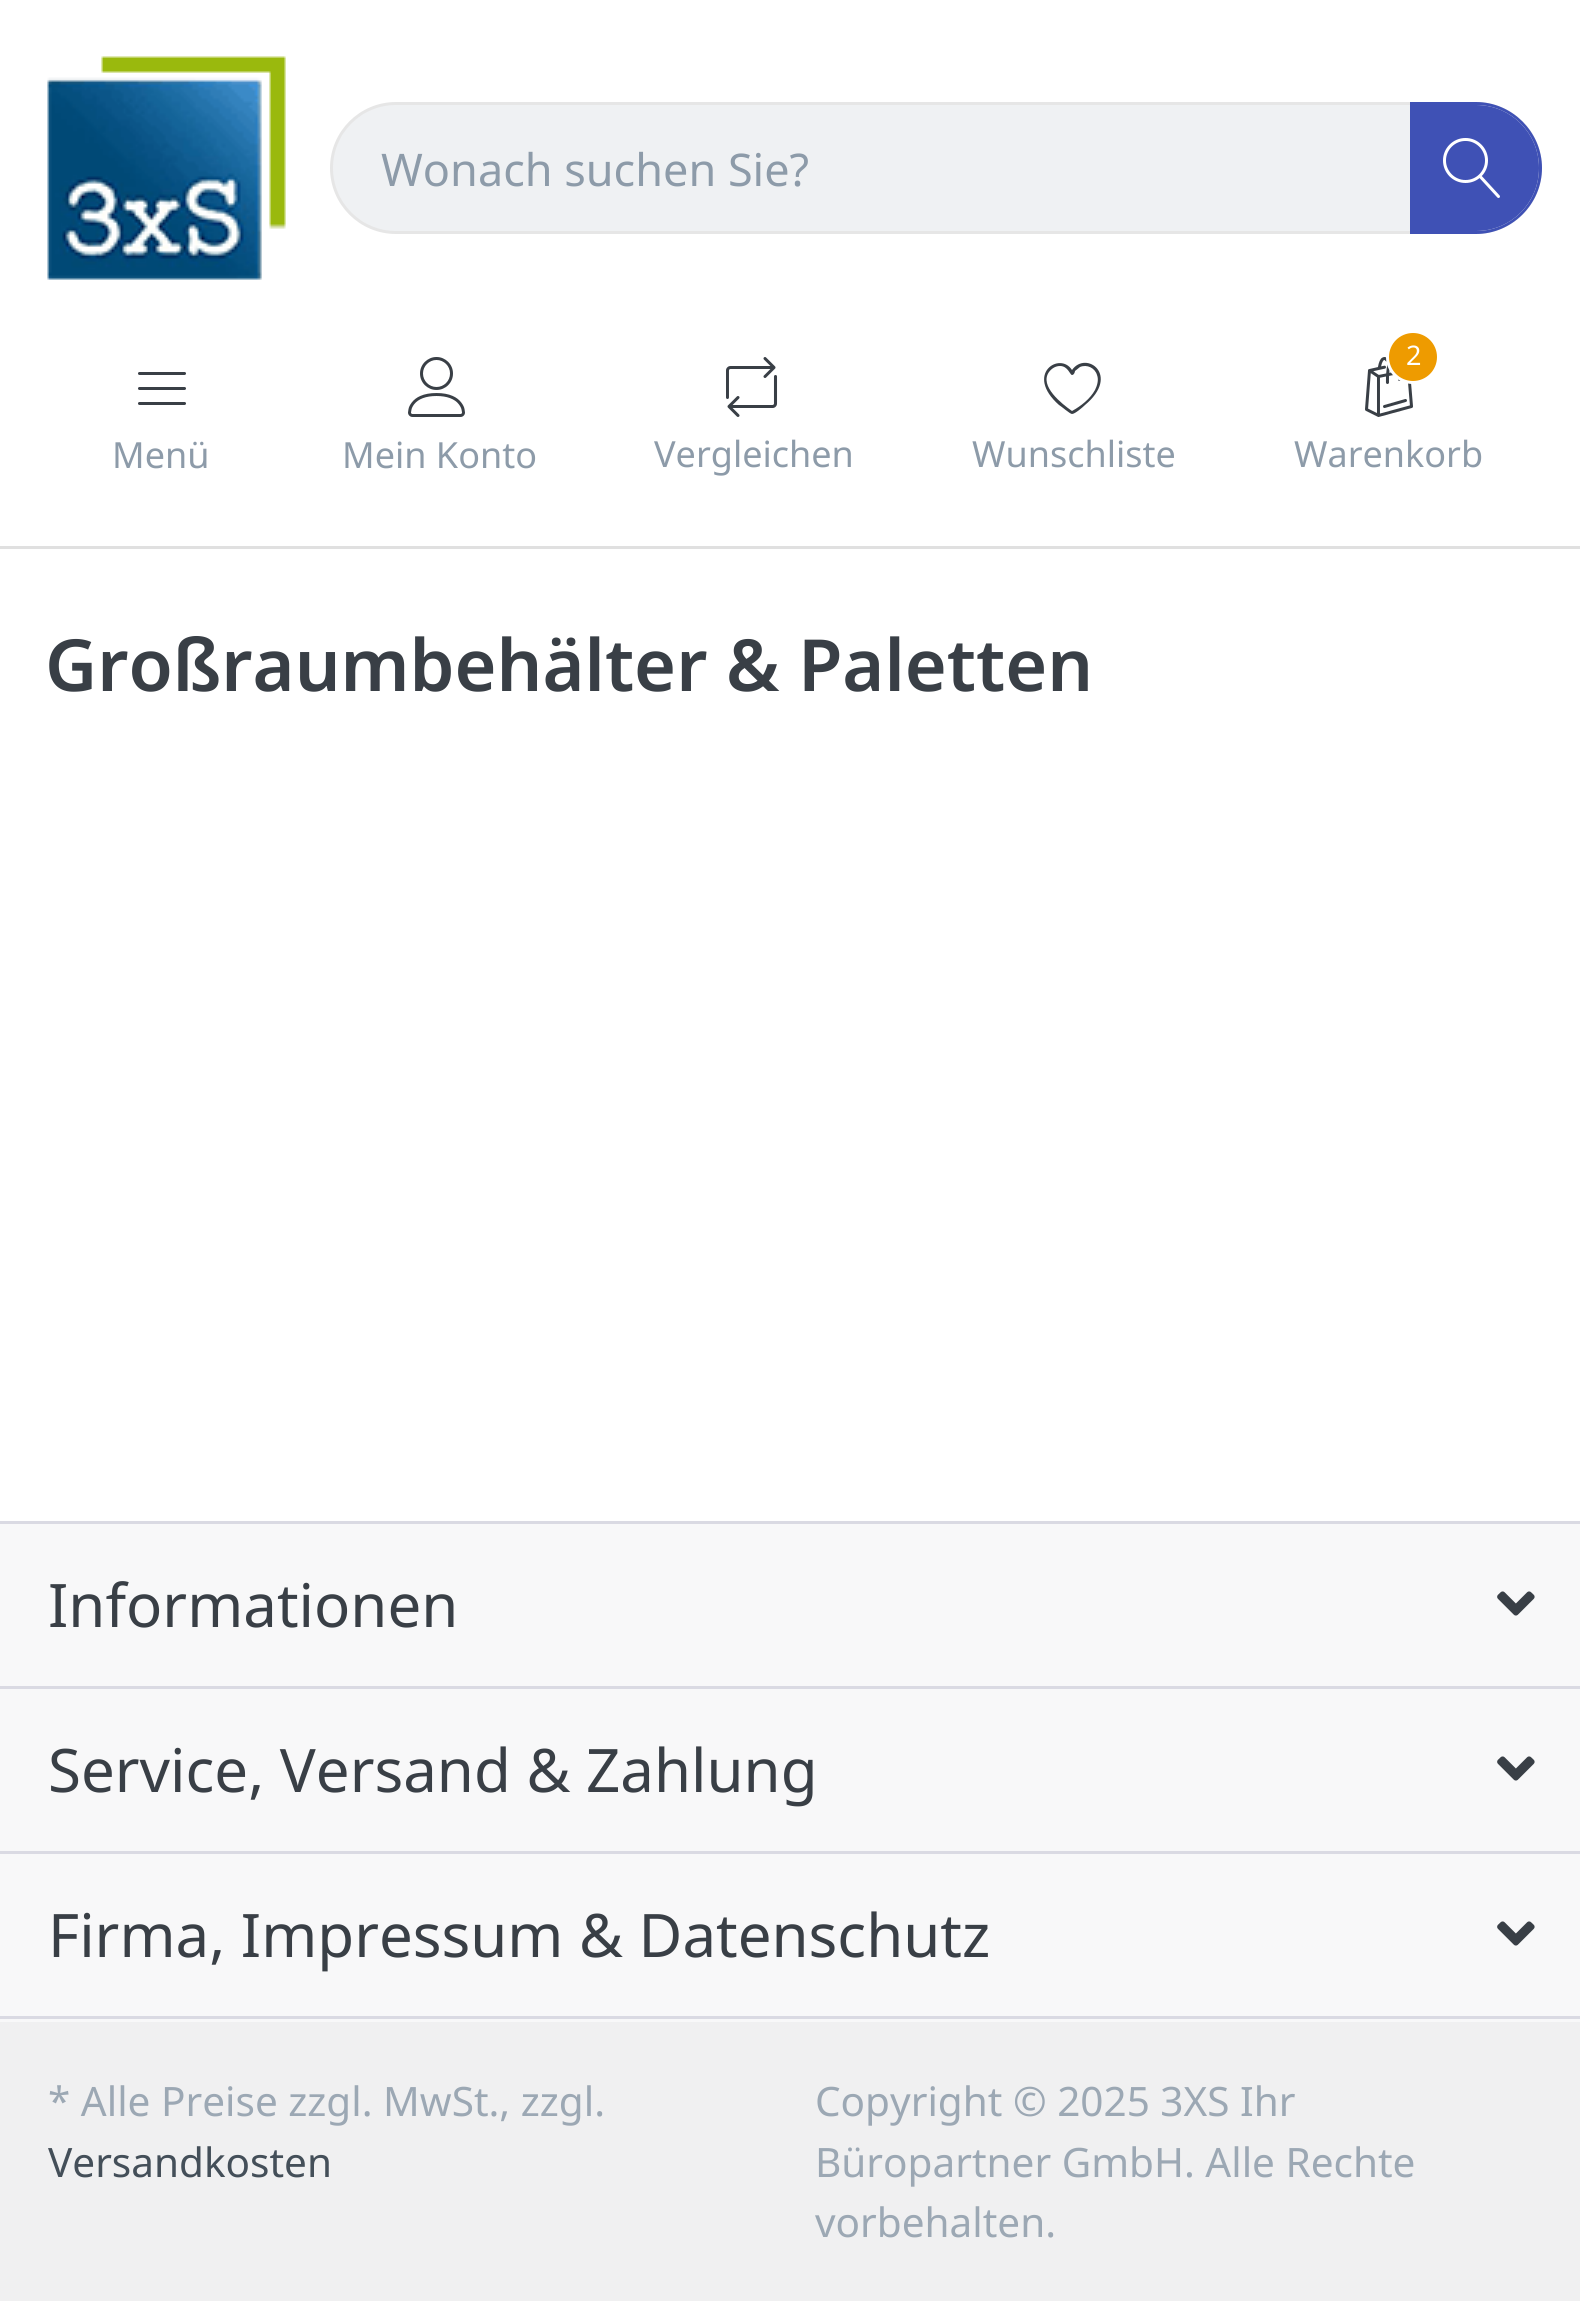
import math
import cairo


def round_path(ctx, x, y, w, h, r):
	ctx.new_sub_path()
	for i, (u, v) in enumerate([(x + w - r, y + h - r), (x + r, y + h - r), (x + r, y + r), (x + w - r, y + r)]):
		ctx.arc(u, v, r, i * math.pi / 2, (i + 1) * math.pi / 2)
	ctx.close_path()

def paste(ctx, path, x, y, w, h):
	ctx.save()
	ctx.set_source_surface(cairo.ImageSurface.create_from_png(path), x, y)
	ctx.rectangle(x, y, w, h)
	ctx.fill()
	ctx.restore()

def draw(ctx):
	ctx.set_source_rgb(1, 1, 1)
	ctx.paint()
	ctx.set_source_rgb(0.878, 0.878, 0.878)
	ctx.rectangle(0, 546, 1580, 3)
	ctx.fill()
	paste(ctx, 'media/1.png', 47, 56, 239, 224)
	ctx.set_source_rgb(0.937, 0.945, 0.953)
	round_path(ctx, 333, 105, 1206, 126, 63)
	ctx.fill()
	round_path(ctx, 331.5, 103.5, 1209, 129, 64.5)
	ctx.set_source_rgba(0, 0, 0, 0.1)
	ctx.set_line_width(3)
	ctx.stroke()
	ctx.select_font_face('Noto Sans')
	ctx.set_font_size(45)
	ctx.set_source_rgb(0.553, 0.608, 0.663)
	ctx.move_to(381, 186)
	ctx.show_text('Wonach suchen Sie?')
	ctx.set_source_rgb(0.247, 0.318, 0.71)
	ctx.new_path()
	ctx.move_to(1410, 105)
	ctx.line_to(1476, 105)
	ctx.curve_to(1511, 105, 1539, 133, 1539, 168)
	ctx.curve_to(1539, 203, 1511, 231, 1476, 231)
	ctx.line_to(1410, 231)
	ctx.close_path()
	ctx.fill()
	ctx.set_fill_rule(cairo.FILL_RULE_EVEN_ODD)
	ctx.new_path()
	ctx.move_to(1410, 102)
	ctx.line_to(1476, 102)
	ctx.curve_to(1512, 102, 1542, 132, 1542, 168)
	ctx.curve_to(1542, 204, 1512, 234, 1476, 234)
	ctx.line_to(1410, 234)
	ctx.close_path()
	ctx.move_to(1410, 105)
	ctx.line_to(1476, 105)
	ctx.curve_to(1511, 105, 1539, 133, 1539, 168)
	ctx.curve_to(1539, 203, 1511, 231, 1476, 231)
	ctx.line_to(1410, 231)
	ctx.close_path()
	ctx.fill()
	paste(ctx, 'media/2.png', 1443, 138, 57, 60)
	paste(ctx, 'media/3.png', 138, 372, 48, 33)
	ctx.set_font_size(36)
	ctx.set_source_rgb(0.553, 0.608, 0.663)
	ctx.move_to(112, 468)
	ctx.show_text('Menü')
	paste(ctx, 'media/4.png', 408, 357, 57, 60)
	ctx.move_to(342, 468)
	ctx.show_text('Mein Konto')
	paste(ctx, 'media/5.png', 726, 357, 52, 60)
	ctx.move_to(654, 467)
	ctx.show_text('Vergleichen')
	ctx.set_source_rgb(0.224, 0.247, 0.275)
	ctx.set_fill_rule(cairo.FILL_RULE_WINDING)
	ctx.new_path()
	ctx.move_to(1072, 414)
	ctx.curve_to(1070, 414, 1061, 406, 1059, 405)
	ctx.curve_to(1024, 374, 1060, 351, 1072, 370)
	ctx.curve_to(1086, 350, 1121, 375, 1085, 405)
	ctx.curve_to(1083, 407, 1075, 414, 1072, 414)
	ctx.close_path()
	ctx.move_to(1060, 366)
	ctx.curve_to(1056, 366, 1052, 368, 1049, 372)
	ctx.curve_to(1039, 386, 1062, 404, 1072, 411)
	ctx.curve_to(1081, 406, 1090, 399, 1095, 390)
	ctx.curve_to(1097, 386, 1099, 380, 1097, 375)
	ctx.curve_to(1095, 368, 1087, 364, 1080, 367)
	ctx.line_to(1075, 371)
	ctx.curve_to(1075, 372, 1074, 375, 1072, 375)
	ctx.curve_to(1070, 375, 1068, 366, 1060, 366)
	ctx.close_path()
	ctx.fill()
	ctx.set_source_rgb(0.553, 0.608, 0.663)
	ctx.move_to(972, 467)
	ctx.show_text('Wunschliste')
	paste(ctx, 'media/6.png', 1365, 357, 48, 60)
	ctx.set_source_rgb(0.933, 0.608, 0)
	ctx.arc(1413, 357, 25.5, 0, 2 * math.pi)
	ctx.fill_preserve()
	ctx.set_source_rgb(1, 1, 1)
	ctx.stroke()
	ctx.set_font_size(27)
	ctx.move_to(1406, 365)
	ctx.show_text('2')
	ctx.set_font_size(36)
	ctx.set_source_rgb(0.553, 0.608, 0.663)
	ctx.move_to(1294, 467)
	ctx.show_text('Warenkorb')
	ctx.select_font_face('Noto Sans SemiBold')
	ctx.set_font_size(71.9)
	ctx.set_source_rgb(0.224, 0.247, 0.275)
	ctx.move_to(45, 691)
	ctx.show_text('Großraumbehälter & Paletten')
	ctx.set_source_rgb(0.969, 0.969, 0.976)
	ctx.rectangle(0, 1524, 1580, 498)
	ctx.fill()
	ctx.set_source_rgb(0.855, 0.855, 0.89)
	ctx.rectangle(0, 1521, 1580, 3)
	ctx.rectangle(0, 1686, 1580, 3)
	ctx.fill()
	ctx.select_font_face('Noto Sans')
	ctx.set_font_size(60)
	ctx.set_source_rgb(0.224, 0.247, 0.275)
	ctx.move_to(48, 1627)
	ctx.show_text('Informationen')
	paste(ctx, 'media/7.png', 1497, 1591, 38, 25)
	ctx.set_source_rgb(0.855, 0.855, 0.89)
	ctx.rectangle(0, 1851, 1580, 3)
	ctx.fill()
	ctx.set_source_rgb(0.224, 0.247, 0.275)
	ctx.move_to(48, 1792)
	ctx.show_text('Service, Versand & Zahlung')
	paste(ctx, 'media/7.png', 1497, 1756, 38, 25)
	ctx.set_source_rgb(0.855, 0.855, 0.89)
	ctx.rectangle(0, 2016, 1580, 3)
	ctx.fill()
	ctx.set_source_rgb(0.224, 0.247, 0.275)
	ctx.move_to(48, 1957)
	ctx.show_text('Firma, Impressum & Datenschutz')
	paste(ctx, 'media/7.png', 1497, 1921, 38, 25)
	ctx.set_source_rgb(0.941, 0.941, 0.945)
	ctx.rectangle(0, 2022, 1580, 279)
	ctx.fill()
	ctx.set_font_size(40.5)
	ctx.set_source_rgb(0.612, 0.659, 0.706)
	ctx.move_to(48, 2116)
	ctx.show_text('* Alle Preise zzgl. MwSt., zzgl.')
	ctx.set_source_rgb(0.267, 0.31, 0.349)
	ctx.move_to(48, 2177)
	ctx.show_text('Versandkosten')
	ctx.set_source_rgb(0.612, 0.659, 0.706)
	for x, y, s in [
		(815, 2116, 'Copyright © 2025 3XS Ihr'),
		(815, 2177, 'Büropartner GmbH. Alle Rechte'),
		(815, 2237, 'vorbehalten.'),
	]:
		ctx.move_to(x, y)
		ctx.show_text(s)


surface = cairo.ImageSurface(cairo.FORMAT_RGB24, 1580, 2307)
ctx = cairo.Context(surface)
options = cairo.FontOptions()
options.set_hint_metrics(cairo.HINT_METRICS_OFF)
options.set_hint_style(cairo.HINT_STYLE_NONE)
ctx.set_font_options(options)
ctx.set_miter_limit(4)
draw(ctx)
surface.write_to_png('image.png')
